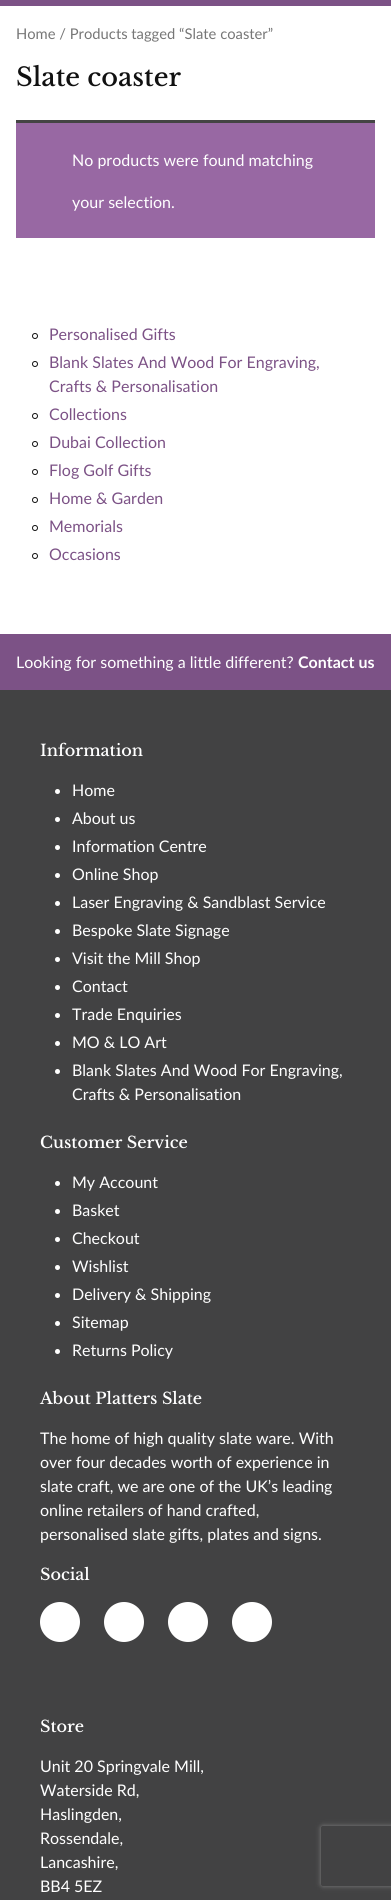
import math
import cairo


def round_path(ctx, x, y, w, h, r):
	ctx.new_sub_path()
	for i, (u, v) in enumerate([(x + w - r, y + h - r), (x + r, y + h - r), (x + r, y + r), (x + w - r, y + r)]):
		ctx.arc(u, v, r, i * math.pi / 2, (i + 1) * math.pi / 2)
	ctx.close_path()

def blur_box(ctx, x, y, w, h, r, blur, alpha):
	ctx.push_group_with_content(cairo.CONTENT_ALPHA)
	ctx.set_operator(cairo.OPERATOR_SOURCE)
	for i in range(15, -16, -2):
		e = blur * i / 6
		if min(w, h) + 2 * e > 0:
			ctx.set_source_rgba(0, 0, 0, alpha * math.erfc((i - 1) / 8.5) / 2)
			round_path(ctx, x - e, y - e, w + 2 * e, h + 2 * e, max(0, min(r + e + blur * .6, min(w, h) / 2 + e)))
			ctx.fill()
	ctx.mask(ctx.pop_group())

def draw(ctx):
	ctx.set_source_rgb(1, 1, 1)
	ctx.paint()
	ctx.set_source_rgb(0.486, 0.322, 0.525)
	ctx.rectangle(0, 0, 391, 6)
	ctx.fill()
	ctx.select_font_face('Lato')
	ctx.set_font_size(14.75)
	ctx.set_source_rgb(0.463, 0.463, 0.463)
	ctx.move_to(16, 39)
	ctx.show_text('Home / Products tagged “Slate coaster”')
	ctx.select_font_face('Libre Baskerville Medium')
	ctx.set_font_size(25.5)
	ctx.set_source_rgb(0.067, 0.067, 0.067)
	ctx.move_to(16, 86)
	ctx.show_text('Slate coaster')
	ctx.set_source_rgb(0.596, 0.408, 0.639)
	ctx.rectangle(16, 123, 359, 115)
	ctx.fill()
	ctx.set_source_rgb(0.267, 0.267, 0.267)
	ctx.rectangle(16, 120, 359, 3)
	ctx.fill()
	ctx.select_font_face('Lato')
	ctx.set_font_size(16)
	ctx.set_source_rgb(1, 1, 1)
	ctx.move_to(72, 166)
	ctx.show_text('No products were found matching')
	ctx.move_to(72, 208)
	ctx.show_text('your selection.')
	ctx.new_path()
	ctx.arc(35, 336, 2.5, 0, 2 * math.pi)
	ctx.set_source_rgb(0.067, 0.067, 0.067)
	ctx.set_line_width(1)
	ctx.stroke()
	ctx.set_source_rgb(0.486, 0.322, 0.525)
	ctx.move_to(49, 340)
	ctx.show_text('Personalised Gifts')
	ctx.new_path()
	ctx.arc(35, 364, 2.5, 0, 2 * math.pi)
	ctx.set_source_rgb(0.067, 0.067, 0.067)
	ctx.stroke()
	ctx.set_source_rgb(0.486, 0.322, 0.525)
	ctx.move_to(49, 368)
	ctx.show_text('Blank Slates And Wood For Engraving,')
	ctx.move_to(49, 392)
	ctx.show_text('Crafts & Personalisation')
	ctx.new_path()
	ctx.arc(35, 416, 2.5, 0, 2 * math.pi)
	ctx.set_source_rgb(0.067, 0.067, 0.067)
	ctx.stroke()
	ctx.set_source_rgb(0.486, 0.322, 0.525)
	ctx.move_to(49, 420)
	ctx.show_text('Collections')
	ctx.new_path()
	ctx.arc(35, 444, 2.5, 0, 2 * math.pi)
	ctx.set_source_rgb(0.067, 0.067, 0.067)
	ctx.stroke()
	ctx.set_source_rgb(0.486, 0.322, 0.525)
	ctx.move_to(49, 448)
	ctx.show_text('Dubai Collection')
	ctx.new_path()
	ctx.arc(35, 472, 2.5, 0, 2 * math.pi)
	ctx.set_source_rgb(0.067, 0.067, 0.067)
	ctx.stroke()
	ctx.set_source_rgb(0.486, 0.322, 0.525)
	ctx.move_to(49, 476)
	ctx.show_text('Flog Golf Gifts')
	ctx.new_path()
	ctx.arc(35, 500, 2.5, 0, 2 * math.pi)
	ctx.set_source_rgb(0.067, 0.067, 0.067)
	ctx.stroke()
	ctx.set_source_rgb(0.486, 0.322, 0.525)
	ctx.move_to(49, 504)
	ctx.show_text('Home & Garden')
	ctx.new_path()
	ctx.arc(35, 528, 2.5, 0, 2 * math.pi)
	ctx.set_source_rgb(0.067, 0.067, 0.067)
	ctx.stroke()
	ctx.set_source_rgb(0.486, 0.322, 0.525)
	ctx.move_to(49, 532)
	ctx.show_text('Memorials')
	ctx.new_path()
	ctx.arc(35, 556, 2.5, 0, 2 * math.pi)
	ctx.set_source_rgb(0.067, 0.067, 0.067)
	ctx.stroke()
	ctx.set_source_rgb(0.486, 0.322, 0.525)
	ctx.move_to(49, 560)
	ctx.show_text('Occasions')
	ctx.rectangle(0, 634, 391, 56)
	ctx.fill()
	ctx.set_source_rgb(1, 1, 1)
	ctx.move_to(16, 668)
	ctx.show_text('Looking for something a little different?')
	ctx.select_font_face('Lato', cairo.FONT_SLANT_NORMAL, cairo.FONT_WEIGHT_BOLD)
	ctx.move_to(298, 668)
	ctx.show_text('Contact us')
	ctx.set_source_rgb(0.259, 0.259, 0.263)
	ctx.rectangle(0, 690, 391, 1210)
	ctx.fill()
	ctx.select_font_face('Libre Baskerville Medium')
	ctx.set_source_rgb(1, 1, 1)
	ctx.move_to(40, 756)
	ctx.show_text('Information')
	ctx.new_path()
	ctx.arc(57.5, 791.5, 2.5, 0, 2 * math.pi)
	ctx.fill()
	ctx.select_font_face('Lato')
	ctx.move_to(72, 796)
	ctx.show_text('Home')
	ctx.new_path()
	ctx.arc(57.5, 819.5, 2.5, 0, 2 * math.pi)
	ctx.fill()
	ctx.move_to(72, 824)
	ctx.show_text('About us')
	ctx.new_path()
	ctx.arc(57.5, 847.5, 2.5, 0, 2 * math.pi)
	ctx.fill()
	ctx.move_to(72, 852)
	ctx.show_text('Information Centre')
	ctx.new_path()
	ctx.arc(57.5, 875.5, 2.5, 0, 2 * math.pi)
	ctx.fill()
	ctx.move_to(72, 880)
	ctx.show_text('Online Shop')
	ctx.new_path()
	ctx.arc(57.5, 903.5, 2.5, 0, 2 * math.pi)
	ctx.fill()
	ctx.move_to(72, 908)
	ctx.show_text('Laser Engraving & Sandblast Service')
	ctx.new_path()
	ctx.arc(57.5, 931.5, 2.5, 0, 2 * math.pi)
	ctx.fill()
	ctx.move_to(72, 936)
	ctx.show_text('Bespoke Slate Signage')
	ctx.new_path()
	ctx.arc(57.5, 959.5, 2.5, 0, 2 * math.pi)
	ctx.fill()
	ctx.move_to(72, 964)
	ctx.show_text('Visit the Mill Shop')
	ctx.new_path()
	ctx.arc(57.5, 987.5, 2.5, 0, 2 * math.pi)
	ctx.fill()
	ctx.move_to(72, 992)
	ctx.show_text('Contact')
	ctx.new_path()
	ctx.arc(57.5, 1015.5, 2.5, 0, 2 * math.pi)
	ctx.fill()
	ctx.move_to(72, 1020)
	ctx.show_text('Trade Enquiries')
	ctx.new_path()
	ctx.arc(57.5, 1043.5, 2.5, 0, 2 * math.pi)
	ctx.fill()
	ctx.move_to(72, 1048)
	ctx.show_text('MO & LO Art')
	ctx.new_path()
	ctx.arc(57.5, 1071.5, 2.5, 0, 2 * math.pi)
	ctx.fill()
	ctx.move_to(72, 1076)
	ctx.show_text('Blank Slates And Wood For Engraving,')
	ctx.move_to(72, 1100)
	ctx.show_text('Crafts & Personalisation')
	ctx.select_font_face('Libre Baskerville Medium')
	ctx.move_to(40, 1148)
	ctx.show_text('Customer Service')
	ctx.new_path()
	ctx.arc(57.5, 1183.5, 2.5, 0, 2 * math.pi)
	ctx.fill()
	ctx.select_font_face('Lato')
	ctx.move_to(72, 1188)
	ctx.show_text('My Account')
	ctx.new_path()
	ctx.arc(57.5, 1211.5, 2.5, 0, 2 * math.pi)
	ctx.fill()
	ctx.move_to(72, 1216)
	ctx.show_text('Basket')
	ctx.new_path()
	ctx.arc(57.5, 1239.5, 2.5, 0, 2 * math.pi)
	ctx.fill()
	ctx.move_to(72, 1244)
	ctx.show_text('Checkout')
	ctx.new_path()
	ctx.arc(57.5, 1267.5, 2.5, 0, 2 * math.pi)
	ctx.fill()
	ctx.move_to(72, 1272)
	ctx.show_text('Wishlist')
	ctx.new_path()
	ctx.arc(57.5, 1295.5, 2.5, 0, 2 * math.pi)
	ctx.fill()
	ctx.move_to(72, 1300)
	ctx.show_text('Delivery & Shipping')
	ctx.new_path()
	ctx.arc(57.5, 1323.5, 2.5, 0, 2 * math.pi)
	ctx.fill()
	ctx.move_to(72, 1328)
	ctx.show_text('Sitemap')
	ctx.new_path()
	ctx.arc(57.5, 1351.5, 2.5, 0, 2 * math.pi)
	ctx.fill()
	ctx.move_to(72, 1356)
	ctx.show_text('Returns Policy')
	ctx.select_font_face('Libre Baskerville Medium')
	ctx.move_to(40, 1404)
	ctx.show_text('About Platters Slate')
	ctx.select_font_face('Lato')
	for x, y, s in [
		(40, 1444, 'The home of high quality slate ware. With'),
		(40, 1468, 'over four decades worth of experience in'),
		(40, 1492, 'slate craft, we are one of the UK’s leading'),
		(40, 1516, 'online retailers of hand crafted,'),
		(40, 1540, 'personalised slate gifts, plates and signs.'),
	]:
		ctx.move_to(x, y)
		ctx.show_text(s)
	ctx.select_font_face('Libre Baskerville Medium')
	ctx.move_to(40, 1580)
	ctx.show_text('Social')
	ctx.new_path()
	ctx.arc(60, 1622, 20, 0, 2 * math.pi)
	ctx.fill()
	ctx.arc(124, 1622, 20, 0, 2 * math.pi)
	ctx.fill()
	ctx.arc(188, 1622, 20, 0, 2 * math.pi)
	ctx.fill()
	ctx.arc(252, 1622, 20, 0, 2 * math.pi)
	ctx.fill()
	ctx.move_to(40, 1732)
	ctx.show_text('Store')
	ctx.select_font_face('Lato')
	for x, y, s in [
		(40, 1772, 'Unit 20 Springvale Mill,'),
		(40, 1796, 'Waterside Rd,'),
		(40, 1820, 'Haslingden,'),
		(40, 1844, 'Rossendale,'),
		(40, 1868, 'Lancashire,'),
		(40, 1892, 'BB4 5EZ'),
	]:
		ctx.move_to(x, y)
		ctx.show_text(s)
	ctx.save()
	ctx.set_fill_rule(cairo.FILL_RULE_EVEN_ODD)
	ctx.new_path()
	ctx.move_to(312, 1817)
	ctx.line_to(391, 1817)
	ctx.line_to(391, 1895)
	ctx.line_to(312, 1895)
	ctx.close_path()
	ctx.move_to(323, 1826)
	ctx.line_to(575, 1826)
	ctx.curve_to(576, 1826, 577, 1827, 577, 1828)
	ctx.line_to(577, 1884)
	ctx.curve_to(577, 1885, 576, 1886, 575, 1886)
	ctx.line_to(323, 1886)
	ctx.curve_to(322, 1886, 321, 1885, 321, 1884)
	ctx.line_to(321, 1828)
	ctx.curve_to(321, 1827, 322, 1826, 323, 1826)
	ctx.close_path()
	ctx.clip()
	ctx.set_source_rgb(0.502, 0.502, 0.502)
	blur_box(ctx, 321, 1826, 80, 60, 2, 2.5, 1)
	ctx.restore()


surface = cairo.ImageSurface(cairo.FORMAT_RGB24, 391, 1900)
ctx = cairo.Context(surface)
options = cairo.FontOptions()
options.set_hint_metrics(cairo.HINT_METRICS_OFF)
options.set_hint_style(cairo.HINT_STYLE_NONE)
ctx.set_font_options(options)
ctx.set_miter_limit(4)
draw(ctx)
surface.write_to_png('image.png')
